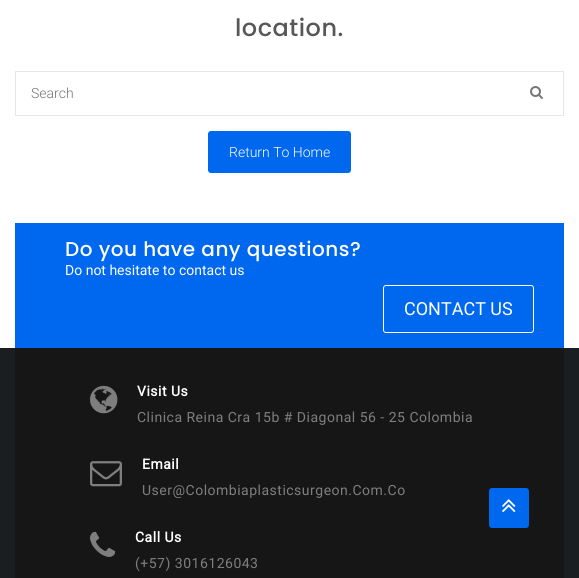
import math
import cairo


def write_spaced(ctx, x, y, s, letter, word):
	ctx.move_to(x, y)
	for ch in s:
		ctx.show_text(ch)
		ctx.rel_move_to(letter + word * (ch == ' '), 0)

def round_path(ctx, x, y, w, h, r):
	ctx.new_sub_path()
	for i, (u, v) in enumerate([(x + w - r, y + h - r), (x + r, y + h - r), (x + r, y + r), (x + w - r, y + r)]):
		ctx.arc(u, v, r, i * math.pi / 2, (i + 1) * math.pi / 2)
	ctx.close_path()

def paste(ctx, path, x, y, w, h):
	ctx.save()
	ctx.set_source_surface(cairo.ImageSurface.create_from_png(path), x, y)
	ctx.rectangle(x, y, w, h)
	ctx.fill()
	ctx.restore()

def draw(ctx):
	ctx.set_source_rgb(1, 1, 1)
	ctx.paint()
	ctx.select_font_face('Poppins Medium')
	ctx.set_font_size(24)
	ctx.set_source_rgb(0.341, 0.341, 0.341)
	write_spaced(ctx, 235, 36, 'location.', 0.5, 0)
	ctx.rectangle(15.5, 71.5, 548, 44)
	ctx.set_source_rgb(0.902, 0.902, 0.902)
	ctx.set_line_width(1)
	ctx.stroke()
	ctx.select_font_face('Roboto Light')
	ctx.set_font_size(14)
	ctx.set_source_rgb(0.459, 0.459, 0.459)
	ctx.move_to(31, 98)
	ctx.show_text('Search')
	paste(ctx, 'media/1.png', 530, 86, 13, 13)
	ctx.set_source_rgb(0, 0.404, 0.937)
	round_path(ctx, 208.5, 131.5, 142, 41, 2.5)
	ctx.fill_preserve()
	ctx.stroke()
	ctx.set_source_rgb(1, 1, 1)
	ctx.move_to(229, 157)
	ctx.show_text('Return To Home')
	ctx.set_source_rgb(0, 0.404, 0.937)
	ctx.rectangle(15, 223, 549, 125)
	ctx.fill()
	ctx.select_font_face('Poppins Medium')
	ctx.set_font_size(20)
	ctx.set_source_rgb(1, 1, 1)
	write_spaced(ctx, 65, 256, 'Do you have any questions?', 0.5, 0)
	ctx.select_font_face('Roboto')
	ctx.set_font_size(14)
	ctx.move_to(65, 275)
	ctx.show_text('Do not hesitate to contact us')
	round_path(ctx, 383.5, 285.5, 150, 47, 2.5)
	ctx.stroke()
	ctx.set_font_size(18)
	ctx.move_to(404, 315)
	ctx.show_text('CONTACT US')
	ctx.set_source_rgb(0.102, 0.118, 0.129)
	ctx.rectangle(0, 348, 579, 230)
	ctx.fill()
	ctx.set_source_rgb(0.086, 0.086, 0.086)
	ctx.rectangle(15, 348, 549, 230)
	ctx.fill()
	paste(ctx, 'media/2.png', 90, 385, 28, 29)
	ctx.select_font_face('Roboto', cairo.FONT_SLANT_NORMAL, cairo.FONT_WEIGHT_BOLD)
	ctx.set_font_size(14)
	ctx.set_source_rgb(1, 1, 1)
	write_spaced(ctx, 137, 396, 'Visit Us', 0.5, 0)
	ctx.select_font_face('Roboto')
	ctx.set_source_rgb(0.494, 0.494, 0.494)
	write_spaced(ctx, 137, 422, 'Clinica Reina Cra 15b # Diagonal 56 - 25 Colombia', 0.5, 0)
	paste(ctx, 'media/3.png', 90, 461, 32, 26)
	ctx.select_font_face('Roboto', cairo.FONT_SLANT_NORMAL, cairo.FONT_WEIGHT_BOLD)
	ctx.set_source_rgb(1, 1, 1)
	write_spaced(ctx, 142, 469, 'Email', 0.5, 0)
	ctx.select_font_face('Roboto')
	ctx.set_source_rgb(0.494, 0.494, 0.494)
	write_spaced(ctx, 142, 495, 'User@Colombiaplasticsurgeon.Com.Co', 0.5, 0)
	paste(ctx, 'media/4.png', 90, 531, 26, 26)
	ctx.select_font_face('Roboto', cairo.FONT_SLANT_NORMAL, cairo.FONT_WEIGHT_BOLD)
	ctx.set_source_rgb(1, 1, 1)
	write_spaced(ctx, 135, 542, 'Call Us', 0.5, 0)
	ctx.select_font_face('Roboto')
	ctx.set_source_rgb(0.494, 0.494, 0.494)
	write_spaced(ctx, 135, 568, '(+57) 3016126043', 0.5, 0)
	ctx.set_source_rgb(0, 0.404, 0.937)
	round_path(ctx, 489, 488, 40, 40, 3)
	ctx.fill()
	paste(ctx, 'media/5.png', 502, 499, 14, 14)


surface = cairo.ImageSurface(cairo.FORMAT_RGB24, 579, 578)
ctx = cairo.Context(surface)
options = cairo.FontOptions()
options.set_hint_metrics(cairo.HINT_METRICS_OFF)
options.set_hint_style(cairo.HINT_STYLE_NONE)
ctx.set_font_options(options)
ctx.set_miter_limit(4)
draw(ctx)
surface.write_to_png('image.png')
